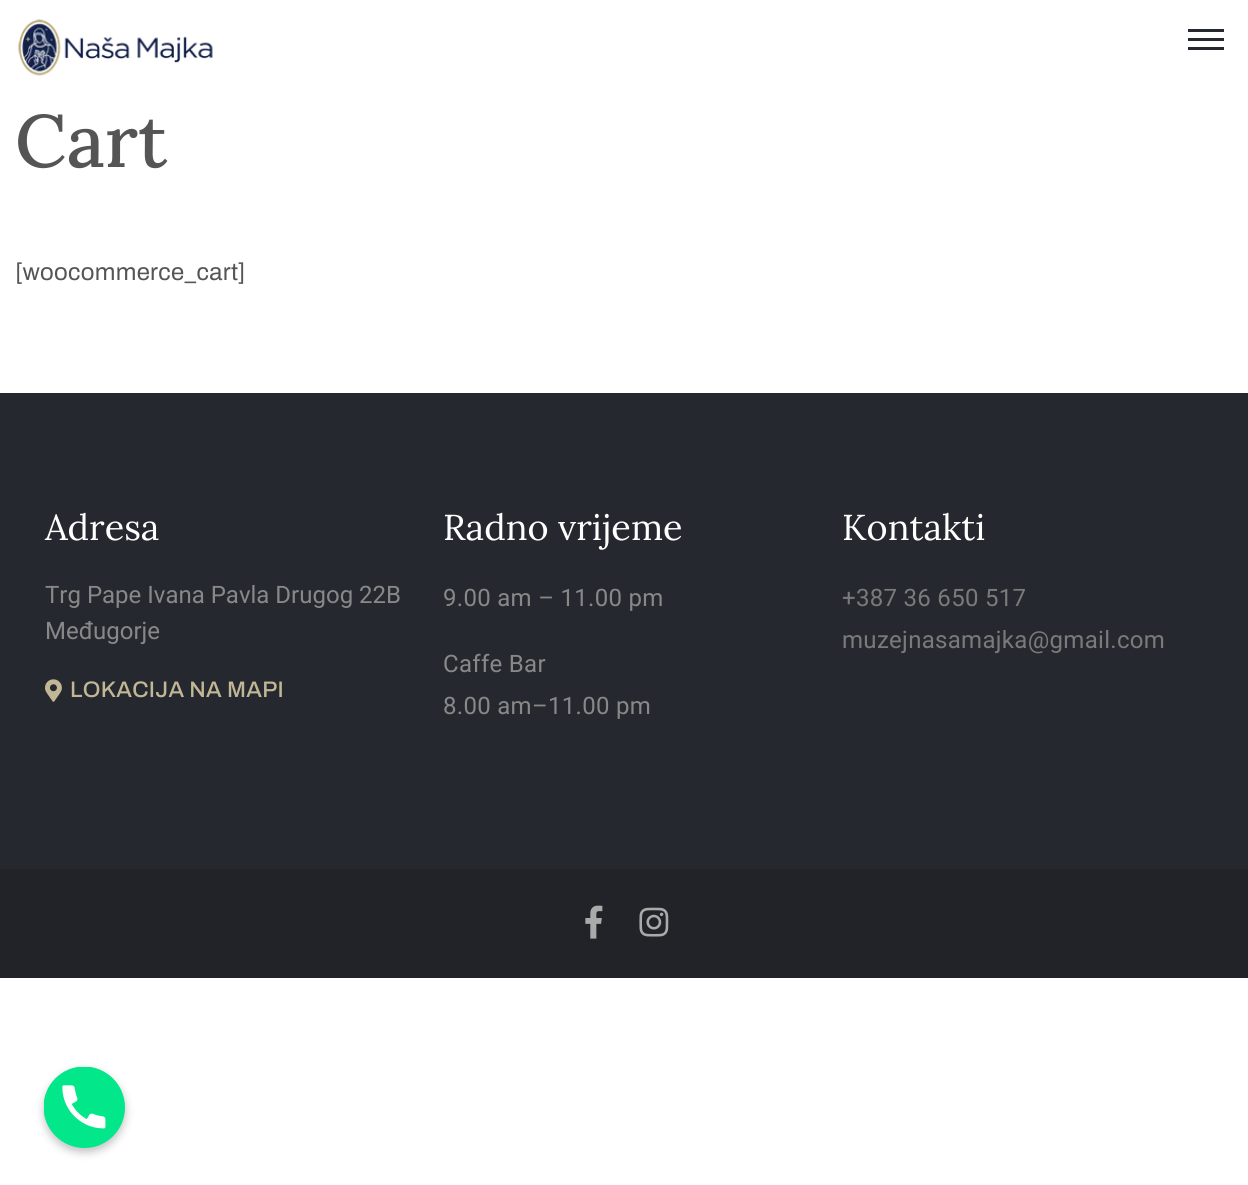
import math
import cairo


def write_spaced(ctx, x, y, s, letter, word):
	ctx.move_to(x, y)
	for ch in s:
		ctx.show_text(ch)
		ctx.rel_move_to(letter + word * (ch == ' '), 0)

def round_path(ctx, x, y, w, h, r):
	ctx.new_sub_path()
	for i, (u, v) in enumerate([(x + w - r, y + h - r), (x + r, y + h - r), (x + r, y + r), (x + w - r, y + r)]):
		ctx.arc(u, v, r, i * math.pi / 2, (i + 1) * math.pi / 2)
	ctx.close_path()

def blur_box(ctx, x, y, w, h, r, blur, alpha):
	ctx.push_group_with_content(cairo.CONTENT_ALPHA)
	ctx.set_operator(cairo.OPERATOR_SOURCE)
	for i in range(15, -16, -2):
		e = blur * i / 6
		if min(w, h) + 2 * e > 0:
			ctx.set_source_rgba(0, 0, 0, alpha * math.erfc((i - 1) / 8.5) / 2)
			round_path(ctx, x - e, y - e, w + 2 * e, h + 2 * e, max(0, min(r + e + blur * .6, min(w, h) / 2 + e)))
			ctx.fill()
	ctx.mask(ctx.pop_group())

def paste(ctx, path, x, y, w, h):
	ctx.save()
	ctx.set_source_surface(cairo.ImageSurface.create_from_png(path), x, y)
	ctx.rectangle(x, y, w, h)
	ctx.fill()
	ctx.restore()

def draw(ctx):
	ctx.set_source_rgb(1, 1, 1)
	ctx.paint()
	paste(ctx, 'media/1.png', 18, 19, 195, 57)
	ctx.set_source_rgb(0.145, 0.157, 0.18)
	ctx.rectangle(1188, 29, 36, 3)
	ctx.rectangle(1188, 38, 36, 3)
	ctx.rectangle(1188, 47, 36, 3)
	ctx.fill()
	ctx.select_font_face('Lora Medium')
	ctx.set_font_size(74)
	ctx.set_source_rgb(0.333, 0.333, 0.333)
	ctx.move_to(15, 167)
	ctx.show_text('Cart')
	ctx.select_font_face('Archivo')
	ctx.set_font_size(24)
	write_spaced(ctx, 15, 280, '[woocommerce_cart]', 0.3, 0)
	ctx.set_source_rgb(0.145, 0.157, 0.18)
	ctx.rectangle(0, 393, 1248, 476)
	ctx.fill()
	ctx.select_font_face('Lora')
	ctx.set_font_size(36)
	ctx.set_source_rgb(1, 1, 1)
	ctx.move_to(45, 540)
	ctx.show_text('Adresa')
	ctx.select_font_face('Roboto')
	ctx.set_font_size(24)
	ctx.set_source_rgb(0.533, 0.533, 0.533)
	ctx.move_to(45, 603)
	ctx.show_text('Trg Pape Ivana Pavla Drugog 22B')
	ctx.move_to(45, 639)
	ctx.show_text('Međugorje')
	paste(ctx, 'media/2.png', 45, 679, 17, 23)
	ctx.select_font_face('Archivo Medium')
	ctx.set_font_size(22.5)
	ctx.set_source_rgb(0.757, 0.714, 0.588)
	write_spaced(ctx, 70, 697, 'LOKACIJA NA MAPI', 0.3, 0)
	ctx.select_font_face('Lora')
	ctx.set_font_size(36)
	ctx.set_source_rgb(1, 1, 1)
	ctx.move_to(443, 540)
	ctx.show_text('Radno vrijeme')
	ctx.select_font_face('Roboto')
	ctx.set_font_size(24)
	ctx.set_source_rgb(0.533, 0.533, 0.533)
	for x, y, s in [
		(443, 606, '9.00 am – 11.00 pm'),
		(443, 672, 'Caffe Bar'),
		(443, 714, '8.00 am–11.00 pm'),
	]:
		write_spaced(ctx, x, y, s, 0.3, 0)
	ctx.select_font_face('Lora')
	ctx.set_font_size(36)
	ctx.set_source_rgb(1, 1, 1)
	ctx.move_to(842, 540)
	ctx.show_text('Kontakti')
	ctx.select_font_face('Roboto')
	ctx.set_font_size(24)
	ctx.set_source_rgb(0.478, 0.478, 0.478)
	write_spaced(ctx, 842, 606, '+387 36 650 517', 0.3, 0)
	write_spaced(ctx, 842, 648, 'muzejnasamajka@gmail.com', 0.3, 0)
	ctx.set_source_rgb(0.129, 0.137, 0.161)
	ctx.rectangle(0, 869, 1248, 109)
	ctx.fill()
	paste(ctx, 'media/3.png', 585, 905, 18, 34)
	paste(ctx, 'media/4.png', 639, 907, 30, 30)
	ctx.set_source_rgb(0, 0, 0)
	blur_box(ctx, 44, 1071, 81, 81, 40.5, 4.5, 0.25)
	ctx.set_source_rgb(0.012, 0.906, 0.545)
	ctx.arc(84.5, 1107.5, 40.5, 0, 2 * math.pi)
	ctx.fill()
	paste(ctx, 'media/5.png', 44, 1067, 81, 81)


surface = cairo.ImageSurface(cairo.FORMAT_RGB24, 1248, 1185)
ctx = cairo.Context(surface)
options = cairo.FontOptions()
options.set_hint_metrics(cairo.HINT_METRICS_OFF)
options.set_hint_style(cairo.HINT_STYLE_NONE)
ctx.set_font_options(options)
ctx.set_miter_limit(4)
draw(ctx)
surface.write_to_png('image.png')
